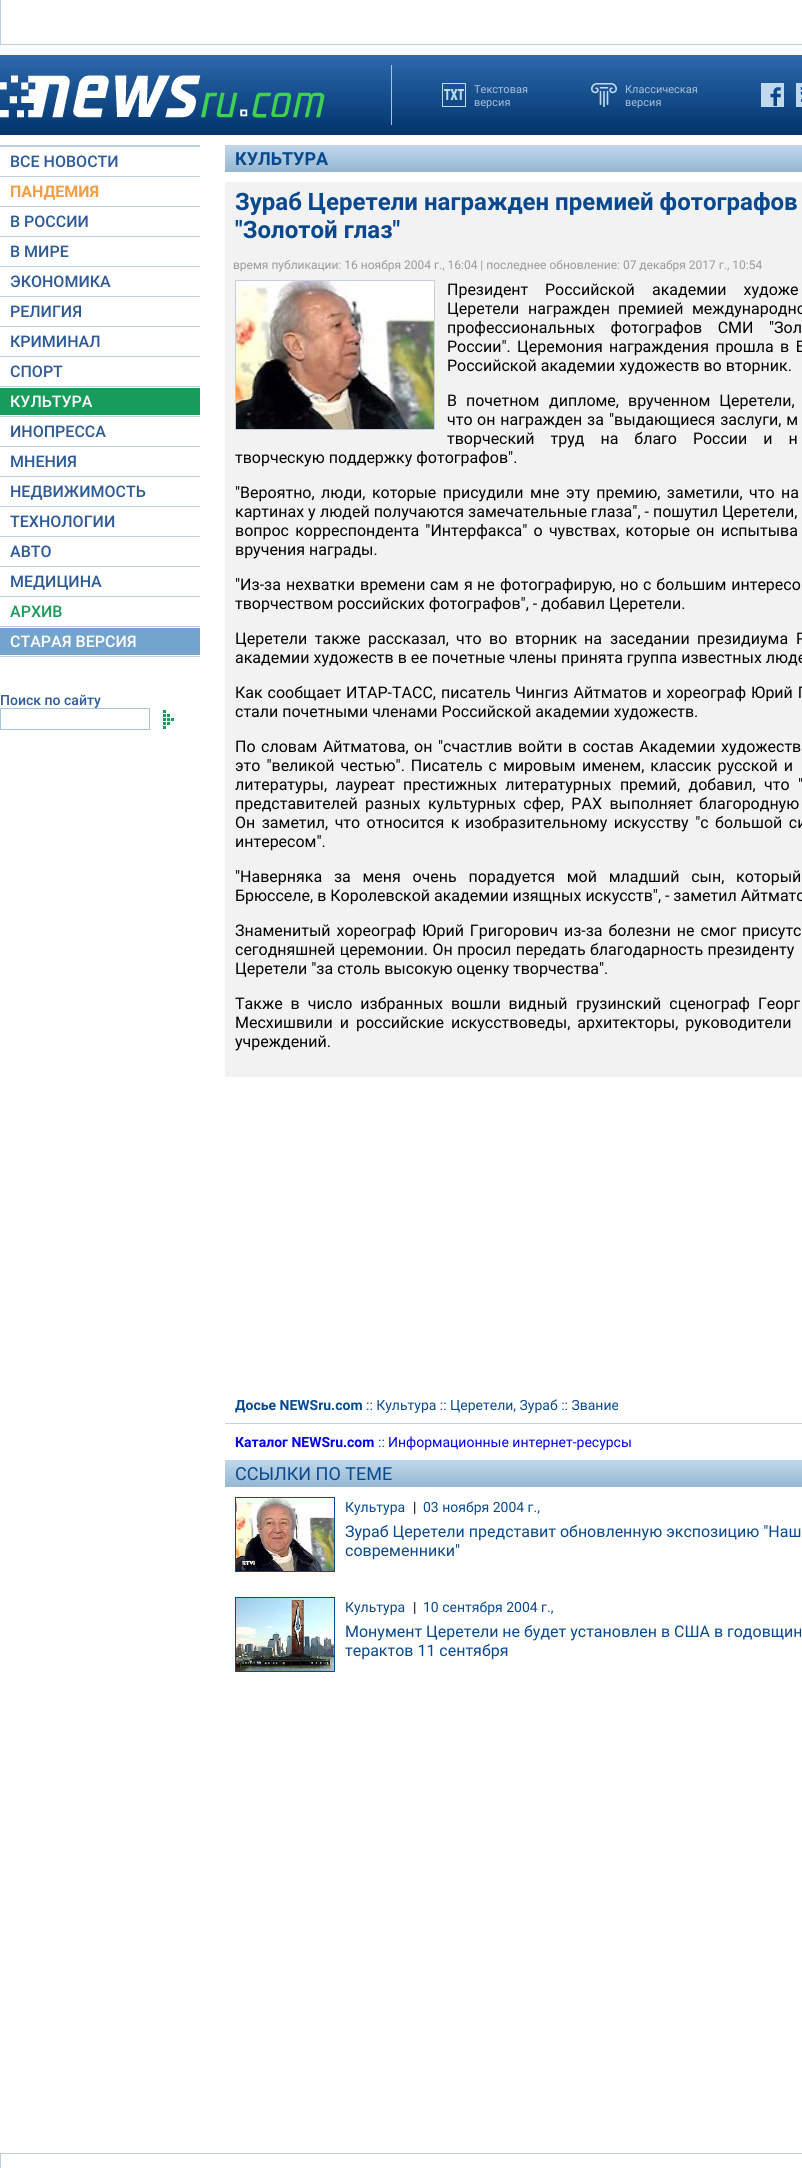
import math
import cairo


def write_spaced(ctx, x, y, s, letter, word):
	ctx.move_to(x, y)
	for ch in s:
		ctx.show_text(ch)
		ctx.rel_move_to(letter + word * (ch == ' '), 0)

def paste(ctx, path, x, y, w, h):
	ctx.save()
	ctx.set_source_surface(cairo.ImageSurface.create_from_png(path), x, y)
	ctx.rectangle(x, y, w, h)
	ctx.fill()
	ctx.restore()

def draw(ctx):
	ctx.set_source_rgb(1, 1, 1)
	ctx.paint()
	ctx.rectangle(0.5, -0.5, 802, 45)
	ctx.set_source_rgb(0.749, 0.812, 0.886)
	ctx.set_line_width(1)
	ctx.stroke()
	gradient = cairo.LinearGradient(625, 55, 625, 135)
	gradient.add_color_stop_rgba(0, 0.176, 0.412, 0.678, 1)
	gradient.add_color_stop_rgba(1, 0, 0.204, 0.427, 1)
	ctx.set_source(gradient)
	ctx.rectangle(0, 55, 802, 80)
	ctx.fill()
	paste(ctx, 'media/1.png', 0, 75, 325, 43)
	ctx.set_source_rgb(0.667, 0.761, 0.859)
	ctx.rectangle(391, 65, 1, 60)
	ctx.fill()
	paste(ctx, 'media/2.png', 442, 83, 24, 24)
	ctx.select_font_face('Roboto')
	ctx.set_font_size(11)
	ctx.move_to(474, 93)
	ctx.show_text('Текстовая')
	ctx.move_to(474, 106)
	ctx.show_text('версия')
	paste(ctx, 'media/3.png', 591, 83, 26, 24)
	ctx.move_to(625, 93)
	ctx.show_text('Классическая')
	ctx.move_to(625, 106)
	ctx.show_text('версия')
	paste(ctx, 'media/4.png', 761, 83, 23, 24)
	paste(ctx, 'media/5.png', 796, 83, 6, 24)
	ctx.set_source_rgb(0.749, 0.812, 0.886)
	ctx.rectangle(0, 145, 200, 2)
	ctx.fill()
	ctx.rectangle(0, 176, 200, 1)
	ctx.fill()
	ctx.select_font_face('Roboto Medium')
	ctx.set_font_size(16)
	ctx.set_source_rgb(0.18, 0.353, 0.596)
	ctx.move_to(10, 167)
	ctx.show_text('ВСЕ НОВОСТИ')
	ctx.set_source_rgb(0.749, 0.812, 0.886)
	ctx.rectangle(0, 206, 200, 1)
	ctx.fill()
	ctx.select_font_face('Roboto', cairo.FONT_SLANT_NORMAL, cairo.FONT_WEIGHT_BOLD)
	ctx.set_source_rgb(0.953, 0.616, 0.275)
	ctx.move_to(10, 197)
	ctx.show_text('ПАНДЕМИЯ')
	ctx.set_source_rgb(0.749, 0.812, 0.886)
	ctx.rectangle(0, 236, 200, 1)
	ctx.fill()
	ctx.select_font_face('Roboto Medium')
	ctx.set_source_rgb(0.18, 0.353, 0.596)
	ctx.move_to(10, 227)
	ctx.show_text('В РОССИИ')
	ctx.set_source_rgb(0.749, 0.812, 0.886)
	ctx.rectangle(0, 266, 200, 1)
	ctx.fill()
	ctx.set_source_rgb(0.18, 0.353, 0.596)
	ctx.move_to(10, 257)
	ctx.show_text('В МИРЕ')
	ctx.set_source_rgb(0.749, 0.812, 0.886)
	ctx.rectangle(0, 296, 200, 1)
	ctx.fill()
	ctx.set_source_rgb(0.18, 0.353, 0.596)
	ctx.move_to(10, 287)
	ctx.show_text('ЭКОНОМИКА')
	ctx.set_source_rgb(0.749, 0.812, 0.886)
	ctx.rectangle(0, 326, 200, 1)
	ctx.fill()
	ctx.set_source_rgb(0.18, 0.353, 0.596)
	ctx.move_to(10, 317)
	ctx.show_text('РЕЛИГИЯ')
	ctx.set_source_rgb(0.749, 0.812, 0.886)
	ctx.rectangle(0, 356, 200, 1)
	ctx.fill()
	ctx.set_source_rgb(0.18, 0.353, 0.596)
	ctx.move_to(10, 347)
	ctx.show_text('КРИМИНАЛ')
	ctx.set_source_rgb(0.749, 0.812, 0.886)
	ctx.rectangle(0, 386, 200, 1)
	ctx.fill()
	ctx.set_source_rgb(0.18, 0.353, 0.596)
	ctx.move_to(10, 377)
	ctx.show_text('СПОРТ')
	ctx.set_source_rgb(0.749, 0.812, 0.886)
	ctx.rectangle(0, 416, 200, 1)
	ctx.fill()
	ctx.set_source_rgb(0.094, 0.612, 0.357)
	ctx.rectangle(0, 388, 200, 27)
	ctx.fill()
	ctx.set_source_rgb(1, 1, 1)
	ctx.move_to(10, 407)
	ctx.show_text('КУЛЬТУРА')
	ctx.set_source_rgb(0.749, 0.812, 0.886)
	ctx.rectangle(0, 446, 200, 1)
	ctx.fill()
	ctx.set_source_rgb(0.18, 0.353, 0.596)
	ctx.move_to(10, 437)
	ctx.show_text('ИНОПРЕССА')
	ctx.set_source_rgb(0.749, 0.812, 0.886)
	ctx.rectangle(0, 476, 200, 1)
	ctx.fill()
	ctx.set_source_rgb(0.18, 0.353, 0.596)
	ctx.move_to(10, 467)
	ctx.show_text('МНЕНИЯ')
	ctx.set_source_rgb(0.749, 0.812, 0.886)
	ctx.rectangle(0, 506, 200, 1)
	ctx.fill()
	ctx.set_source_rgb(0.18, 0.353, 0.596)
	ctx.move_to(10, 497)
	ctx.show_text('НЕДВИЖИМОСТЬ')
	ctx.set_source_rgb(0.749, 0.812, 0.886)
	ctx.rectangle(0, 536, 200, 1)
	ctx.fill()
	ctx.set_source_rgb(0.18, 0.353, 0.596)
	ctx.move_to(10, 527)
	ctx.show_text('ТЕХНОЛОГИИ')
	ctx.set_source_rgb(0.749, 0.812, 0.886)
	ctx.rectangle(0, 566, 200, 1)
	ctx.fill()
	ctx.set_source_rgb(0.18, 0.353, 0.596)
	ctx.move_to(10, 557)
	ctx.show_text('АВТО')
	ctx.set_source_rgb(0.749, 0.812, 0.886)
	ctx.rectangle(0, 596, 200, 1)
	ctx.fill()
	ctx.set_source_rgb(0.18, 0.353, 0.596)
	ctx.move_to(10, 587)
	ctx.show_text('МЕДИЦИНА')
	ctx.set_source_rgb(0.749, 0.812, 0.886)
	ctx.rectangle(0, 626, 200, 1)
	ctx.fill()
	ctx.set_source_rgb(0.094, 0.612, 0.357)
	ctx.move_to(10, 617)
	ctx.show_text('АРХИВ')
	ctx.set_source_rgb(0.749, 0.812, 0.886)
	ctx.rectangle(0, 656, 200, 1)
	ctx.fill()
	ctx.set_source_rgb(0.451, 0.643, 0.804)
	ctx.rectangle(0, 628, 200, 27)
	ctx.fill()
	ctx.set_source_rgb(1, 1, 1)
	ctx.move_to(10, 647)
	ctx.show_text('СТАРАЯ ВЕРСИЯ')
	ctx.set_font_size(14)
	ctx.set_source_rgb(0.18, 0.353, 0.596)
	ctx.move_to(0, 705)
	ctx.show_text('Поиск по сайту')
	ctx.rectangle(0.5, 708.5, 149, 21)
	ctx.set_source_rgb(0.667, 0.761, 0.859)
	ctx.stroke()
	paste(ctx, 'media/6.png', 163, 710, 11, 19)
	gradient = cairo.LinearGradient(560, 145, 560, 172)
	gradient.add_color_stop_rgba(0, 0.753, 0.847, 0.925, 1)
	gradient.add_color_stop_rgba(1, 0.584, 0.714, 0.82, 1)
	ctx.set_source(gradient)
	ctx.rectangle(225, 145, 577, 27)
	ctx.fill()
	ctx.select_font_face('Roboto', cairo.FONT_SLANT_NORMAL, cairo.FONT_WEIGHT_BOLD)
	ctx.set_font_size(18)
	ctx.set_source_rgb(0.035, 0.282, 0.561)
	ctx.move_to(235, 165)
	ctx.show_text('КУЛЬТУРА')
	ctx.set_source_rgb(0.949, 0.949, 0.949)
	ctx.rectangle(225, 182, 577, 895)
	ctx.fill()
	ctx.set_font_size(24)
	ctx.set_source_rgb(0.035, 0.282, 0.561)
	ctx.move_to(235, 210)
	ctx.show_text('Зураб Церетели награжден премией фотографов')
	ctx.move_to(235, 238)
	ctx.show_text('"Золотой глаз"')
	ctx.select_font_face('Roboto')
	ctx.set_font_size(12)
	ctx.set_source_rgb(0.6, 0.6, 0.6)
	ctx.move_to(233, 269)
	ctx.show_text('время публикации: 16 ноября 2004 г., 16:04 | последнее обновление: 07 декабря 2017 г., 10:54')
	ctx.rectangle(235.5, 280.5, 199, 149)
	ctx.set_source_rgb(0.78, 0.808, 0.875)
	ctx.stroke()
	paste(ctx, 'media/7.png', 236, 281, 198, 148)
	ctx.set_font_size(16)
	ctx.set_source_rgb(0, 0, 0)
	ctx.move_to(447, 295)
	ctx.show_text('Президент')
	ctx.move_to(545, 295)
	ctx.show_text('Российской')
	write_spaced(ctx, 652, 295, 'академии художе', 0, 13)
	for x, y, s in [
		(447, 314, 'Церетели'),
		(528, 314, 'награжден'),
		(618, 314, 'премией'),
		(692, 314, 'международно'),
	]:
		ctx.move_to(x, y)
		ctx.show_text(s)
	write_spaced(ctx, 447, 333, 'профессиональных фотографов СМИ "Зол', 0, 11.5)
	ctx.move_to(447, 352)
	ctx.show_text('России".')
	ctx.move_to(517, 352)
	ctx.show_text('Церемония')
	write_spaced(ctx, 609, 352, 'награждения прошла в Б', 0, 2.5)
	ctx.move_to(447, 371)
	ctx.show_text('Российской академии художеств во вторник.')
	write_spaced(ctx, 447, 406, 'В почетном', 0, 5)
	ctx.move_to(549, 406)
	ctx.show_text('дипломе,')
	write_spaced(ctx, 628, 406, 'врученном Церетели,', 0, 5)
	ctx.move_to(447, 425)
	ctx.show_text('что')
	write_spaced(ctx, 477, 425, 'он награжден', 0, 1)
	ctx.move_to(587, 425)
	ctx.show_text('за')
	write_spaced(ctx, 609, 425, '"выдающиеся заслуги, м', 0, 1)
	write_spaced(ctx, 447, 444, 'творческий труд на благо России и н', 0, 12)
	ctx.move_to(235, 463)
	ctx.show_text('творческую поддержку фотографов".')
	write_spaced(ctx, 235, 498, '"Вероятно, люди, которые присудили мне эту премию, заметили, что на', 0, 2.5)
	ctx.move_to(235, 517)
	ctx.show_text('картинах у')
	ctx.move_to(320, 517)
	ctx.show_text('людей получаются замечательные глаза", - пошутил Церетели,')
	write_spaced(ctx, 235, 536, 'вопрос корреспондента "Интерфакса" о чувствах, которые он испытыва', 0, 2.25)
	for x, y, s in [
		(235, 555, 'вручения награды.'),
		(235, 590, '"Из-за'),
		(286, 590, 'нехватки'),
		(360, 590, 'времени'),
		(430, 590, 'сам'),
		(464, 590, 'я'),
		(477, 590, 'не'),
		(500, 590, 'фотографирую,'),
		(620, 590, 'но'),
	]:
		ctx.move_to(x, y)
		ctx.show_text(s)
	write_spaced(ctx, 643, 590, 'с большим интересо', 0, 1)
	ctx.move_to(235, 609)
	ctx.show_text('творчеством российских фотографов", - добавил Церетели.')
	write_spaced(ctx, 235, 644, 'Церетели также', 0, 3.5)
	for x, y, s in [
		(368, 644, 'рассказал,'),
		(456, 644, 'что'),
		(489, 644, 'во'),
		(515, 644, 'вторник'),
		(584, 644, 'на'),
		(610, 644, 'заседании'),
	]:
		ctx.move_to(x, y)
		ctx.show_text(s)
	write_spaced(ctx, 697, 644, 'президиума Р', 0, 4)
	ctx.move_to(235, 663)
	ctx.show_text('академии художеств в ее почетные члены принята группа известных люде')
	write_spaced(ctx, 235, 698, 'Как сообщает ИТАР-ТАСС, писатель', 0, 1)
	write_spaced(ctx, 515, 698, 'Чингиз Айтматов и хореограф Юрий Г', 0, 1)
	ctx.move_to(235, 717)
	ctx.show_text('стали почетными членами Российской академии художеств.')
	write_spaced(ctx, 235, 752, 'По словам Айтматова, он "счастлив войти в состав Академии', 0, 1.5)
	write_spaced(ctx, 721, 752, 'художеств', 0, 1)
	write_spaced(ctx, 235, 771, 'это "великой честью". Писатель с мировым', 0, 2)
	write_spaced(ctx, 582, 771, 'именем, классик русской и', 0, 2)
	write_spaced(ctx, 235, 790, 'литературы, лауреат', 0, 4.5)
	write_spaced(ctx, 403, 790, 'престижных литературных премий, добавил, что "', 0, 4.5)
	write_spaced(ctx, 235, 809, 'представителей разных культурных сфер, РАХ выполняет', 0, 3.5)
	write_spaced(ctx, 699, 809, 'благородную', 0, 3.5)
	write_spaced(ctx, 235, 828, 'Он заметил, что относится к', 0, 2.5)
	write_spaced(ctx, 465, 828, 'изобразительному искусству "с большой си', 0, 2.5)
	ctx.move_to(235, 847)
	ctx.show_text('интересом".')
	write_spaced(ctx, 235, 882, '"Наверняка за меня очень порадуется мой младший сын, который', 0, 7.75)
	ctx.move_to(235, 901)
	ctx.show_text('Брюсселе, в Королевской академии изящных искусств", - заметил Айтмато')
	write_spaced(ctx, 235, 936, 'Знаменитый хореограф Юрий Григорович из-за болезни не смог', 0, 2)
	write_spaced(ctx, 742, 936, 'присутс', 0, 2)
	write_spaced(ctx, 235, 955, 'сегодняшней церемонии. Он просил передать', 0, 0.5)
	write_spaced(ctx, 590, 955, 'благодарность президенту', 0, 0.5)
	ctx.move_to(235, 974)
	ctx.show_text('Церетели "за столь высокую оценку творчества".')
	write_spaced(ctx, 235, 1009, 'Также в число избранных вошли видный', 0, 4)
	write_spaced(ctx, 576, 1009, 'грузинский сценограф Георг', 0, 4)
	write_spaced(ctx, 235, 1028, 'Месхишвили и российские', 0, 3)
	write_spaced(ctx, 451, 1028, 'искусствоведы, архитекторы, руководители', 0, 3)
	ctx.move_to(235, 1047)
	ctx.show_text('учреждений.')
	ctx.set_source_rgb(0.765, 0.824, 0.894)
	ctx.rectangle(225, 1423, 577, 1)
	ctx.fill()
	ctx.select_font_face('Roboto', cairo.FONT_SLANT_NORMAL, cairo.FONT_WEIGHT_BOLD)
	ctx.set_font_size(14)
	ctx.set_source_rgb(0.035, 0.282, 0.561)
	ctx.move_to(235, 1410)
	ctx.show_text('Досье NEWSru.com')
	ctx.select_font_face('Roboto')
	ctx.move_to(366, 1410)
	ctx.show_text(':: Культура :: Церетели, Зураб :: Звание')
	ctx.select_font_face('Roboto', cairo.FONT_SLANT_NORMAL, cairo.FONT_WEIGHT_BOLD)
	ctx.set_source_rgb(0, 0, 0.933)
	ctx.move_to(235, 1447)
	ctx.show_text('Каталог NEWSru.com')
	ctx.select_font_face('Roboto')
	ctx.set_source_rgb(0.035, 0.282, 0.561)
	ctx.move_to(378, 1447)
	ctx.show_text('::')
	ctx.set_source_rgb(0, 0, 0.933)
	ctx.move_to(388, 1447)
	ctx.show_text('Информационные интернет-ресурсы')
	gradient = cairo.LinearGradient(560, 1460, 560, 1487)
	gradient.add_color_stop_rgba(0, 0.753, 0.847, 0.925, 1)
	gradient.add_color_stop_rgba(1, 0.584, 0.714, 0.82, 1)
	ctx.set_source(gradient)
	ctx.rectangle(225, 1460, 577, 27)
	ctx.fill()
	ctx.set_font_size(18)
	ctx.set_source_rgb(0.035, 0.282, 0.561)
	ctx.move_to(235, 1480)
	ctx.show_text('ССЫЛКИ ПО ТЕМЕ')
	ctx.rectangle(235.5, 1497.5, 99, 74)
	ctx.stroke()
	paste(ctx, 'media/8.png', 236, 1498, 98, 73)
	ctx.set_font_size(14)
	ctx.move_to(345, 1512)
	ctx.show_text('Культура')
	ctx.set_source_rgb(0, 0, 0)
	ctx.move_to(413, 1512)
	ctx.show_text('|')
	ctx.set_source_rgb(0.035, 0.282, 0.561)
	ctx.move_to(423, 1512)
	ctx.show_text('03 ноября 2004 г.,')
	ctx.set_font_size(16)
	ctx.move_to(345, 1537)
	ctx.show_text('Зураб Церетели представит обновленную экспозицию "Наш')
	ctx.move_to(345, 1556)
	ctx.show_text('современники"')
	ctx.rectangle(235.5, 1597.5, 99, 74)
	ctx.stroke()
	paste(ctx, 'media/9.png', 236, 1598, 98, 73)
	ctx.set_font_size(14)
	ctx.move_to(345, 1612)
	ctx.show_text('Культура')
	ctx.set_source_rgb(0, 0, 0)
	ctx.move_to(413, 1612)
	ctx.show_text('|')
	ctx.set_source_rgb(0.035, 0.282, 0.561)
	ctx.move_to(423, 1612)
	ctx.show_text('10 сентября 2004 г.,')
	ctx.set_font_size(16)
	ctx.move_to(345, 1637)
	ctx.show_text('Монумент Церетели не будет установлен в США в годовщин')
	ctx.move_to(345, 1656)
	ctx.show_text('терактов 11 сентября')
	ctx.rectangle(0.5, 2153.5, 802, 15)
	ctx.set_source_rgb(0.749, 0.812, 0.886)
	ctx.stroke()


surface = cairo.ImageSurface(cairo.FORMAT_RGB24, 802, 2168)
ctx = cairo.Context(surface)
options = cairo.FontOptions()
options.set_hint_metrics(cairo.HINT_METRICS_OFF)
options.set_hint_style(cairo.HINT_STYLE_NONE)
ctx.set_font_options(options)
ctx.set_miter_limit(4)
draw(ctx)
surface.write_to_png('image.png')
